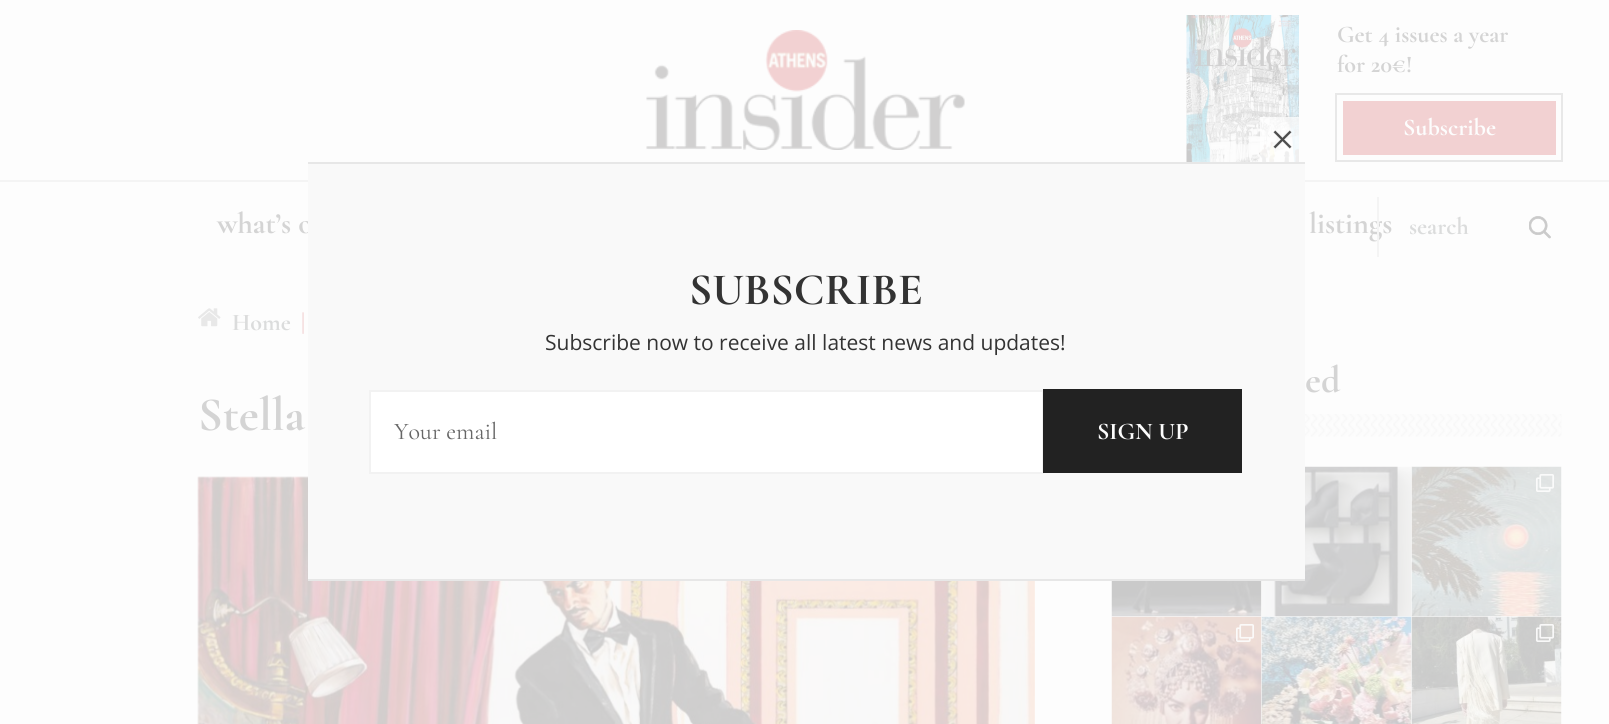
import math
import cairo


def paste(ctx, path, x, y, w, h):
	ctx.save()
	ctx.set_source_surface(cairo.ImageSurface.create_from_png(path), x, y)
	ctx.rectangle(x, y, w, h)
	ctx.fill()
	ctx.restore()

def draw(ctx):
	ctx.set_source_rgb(0.992, 0.992, 0.992)
	ctx.paint()
	paste(ctx, 'media/1.png', 646, 30, 319, 120)
	paste(ctx, 'media/2.png', 1186, 15, 113, 147)
	ctx.select_font_face('Cormorant Garamond', cairo.FONT_SLANT_NORMAL, cairo.FONT_WEIGHT_BOLD)
	ctx.set_font_size(24)
	ctx.set_source_rgb(0.831, 0.831, 0.831)
	ctx.move_to(1337, 42)
	ctx.show_text('Get 4 issues a year')
	ctx.move_to(1337, 72)
	ctx.show_text('for 20€!')
	ctx.set_source_rgb(0.949, 0.82, 0.824)
	ctx.rectangle(1343, 101, 213, 54)
	ctx.fill()
	ctx.rectangle(1336, 94, 226, 67)
	ctx.set_source_rgb(0.91, 0.91, 0.91)
	ctx.stroke()
	ctx.set_source_rgb(0.992, 0.992, 0.992)
	ctx.move_to(1403, 135)
	ctx.show_text('Subscribe')
	ctx.set_source_rgb(0.957, 0.957, 0.957)
	ctx.rectangle(0, 180, 1609, 2)
	ctx.fill()
	ctx.set_font_size(30)
	ctx.set_source_rgb(0.831, 0.831, 0.831)
	ctx.move_to(217, 233)
	ctx.show_text('what’s o')
	ctx.move_to(1309, 233)
	ctx.show_text('listings')
	ctx.set_source_rgb(0.957, 0.957, 0.957)
	ctx.rectangle(1377, 197, 2, 60)
	ctx.fill()
	ctx.set_font_size(24)
	ctx.set_source_rgb(0.859, 0.863, 0.863)
	ctx.move_to(1409, 234)
	ctx.show_text('search')
	paste(ctx, 'media/3.png', 1529, 216, 22, 23)
	paste(ctx, 'media/4.png', 198, 308, 23, 19)
	ctx.move_to(232, 330)
	ctx.show_text('Home')
	ctx.set_source_rgb(0.949, 0.82, 0.824)
	ctx.move_to(301, 330)
	ctx.show_text('|')
	ctx.set_font_size(48)
	ctx.set_source_rgb(0.831, 0.831, 0.831)
	ctx.move_to(198, 430)
	ctx.show_text('Stella')
	paste(ctx, 'media/5.png', 197, 476, 838, 248)
	paste(ctx, 'media/6.png', 1305, 414, 257, 23)
	ctx.set_font_size(38)
	ctx.move_to(1305, 392)
	ctx.show_text('ed')
	paste(ctx, 'media/7.png', 1111, 581, 151, 36)
	paste(ctx, 'media/8.png', 1261, 466, 151, 151)
	paste(ctx, 'media/9.png', 1411, 466, 151, 151)
	paste(ctx, 'media/10.png', 1536, 474, 18, 18)
	paste(ctx, 'media/11.png', 1111, 616, 151, 108)
	paste(ctx, 'media/12.png', 1236, 624, 18, 18)
	paste(ctx, 'media/13.png', 1261, 616, 151, 108)
	paste(ctx, 'media/14.png', 1411, 616, 151, 108)
	paste(ctx, 'media/15.png', 1536, 624, 18, 18)
	ctx.set_source_rgba(1, 1, 1, 0.7)
	ctx.rectangle(1260, 117, 39, 45)
	ctx.fill()
	paste(ctx, 'media/16.png', 1273, 130, 19, 19)
	ctx.set_source_rgb(0.973, 0.973, 0.973)
	ctx.rectangle(308, 164, 997, 415)
	ctx.fill()
	ctx.set_source_rgb(0.906, 0.906, 0.906)
	ctx.rectangle(308, 162, 997, 2)
	ctx.rectangle(308, 579, 997, 2)
	ctx.fill()
	ctx.set_font_size(45)
	ctx.set_source_rgb(0.2, 0.2, 0.2)
	ctx.move_to(689, 304)
	ctx.show_text('SUBSCRIBE')
	ctx.select_font_face('Open Sans')
	ctx.set_font_size(21)
	ctx.move_to(545, 350)
	ctx.show_text('Subscribe now to receive all latest news and updates!')
	ctx.set_source_rgb(1, 1, 1)
	ctx.rectangle(370, 391, 673, 82)
	ctx.fill_preserve()
	ctx.set_source_rgb(0.949, 0.949, 0.949)
	ctx.stroke()
	ctx.select_font_face('Cormorant Garamond')
	ctx.set_font_size(24)
	ctx.set_source_rgb(0.4, 0.4, 0.4)
	ctx.move_to(394, 439)
	ctx.show_text('Your email')
	ctx.set_source_rgb(0.133, 0.133, 0.133)
	ctx.rectangle(1043, 389, 199, 84)
	ctx.fill()
	ctx.select_font_face('Cormorant Garamond', cairo.FONT_SLANT_NORMAL, cairo.FONT_WEIGHT_BOLD)
	ctx.set_source_rgb(0.992, 0.992, 0.992)
	ctx.move_to(1097, 439)
	ctx.show_text('SIGN UP')


surface = cairo.ImageSurface(cairo.FORMAT_RGB24, 1609, 724)
ctx = cairo.Context(surface)
options = cairo.FontOptions()
options.set_hint_metrics(cairo.HINT_METRICS_OFF)
options.set_hint_style(cairo.HINT_STYLE_NONE)
ctx.set_font_options(options)
ctx.set_miter_limit(4)
draw(ctx)
surface.write_to_png('image.png')
